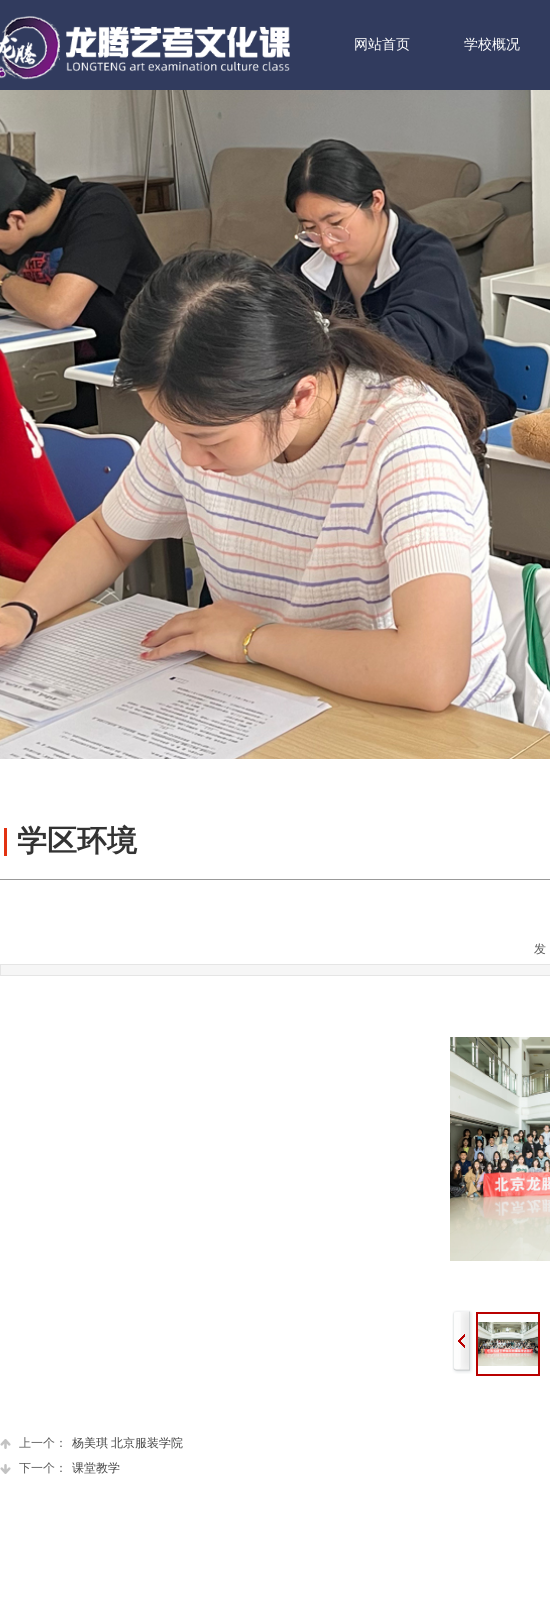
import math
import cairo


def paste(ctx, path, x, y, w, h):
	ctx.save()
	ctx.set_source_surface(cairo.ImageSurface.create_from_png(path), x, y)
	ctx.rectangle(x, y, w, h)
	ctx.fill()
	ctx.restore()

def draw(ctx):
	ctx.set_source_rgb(1, 1, 1)
	ctx.paint()
	ctx.set_source_rgb(0.192, 0.231, 0.369)
	ctx.rectangle(0, 0, 550, 90)
	ctx.fill()
	paste(ctx, 'media/1.png', 0, 16, 290, 64)
	ctx.select_font_face('WenQuanYi Zen Hei Medium')
	ctx.set_font_size(14)
	ctx.set_source_rgb(1, 1, 1)
	ctx.move_to(354, 49)
	ctx.show_text('网站首页')
	ctx.move_to(464, 49)
	ctx.show_text('学校概况')
	paste(ctx, 'media/2.png', 0, 90, 550, 669)
	ctx.set_source_rgb(0.886, 0.196, 0.067)
	ctx.rectangle(4, 828, 3, 28)
	ctx.fill()
	ctx.select_font_face('WenQuanYi Zen Hei', cairo.FONT_SLANT_NORMAL, cairo.FONT_WEIGHT_BOLD)
	ctx.set_font_size(30)
	ctx.set_source_rgb(0.2, 0.2, 0.2)
	ctx.move_to(17, 851)
	ctx.show_text('学区环境')
	ctx.set_source_rgb(0.6, 0.6, 0.6)
	ctx.rectangle(0, 879, 550, 1)
	ctx.fill()
	ctx.select_font_face('WenQuanYi Zen Hei Medium')
	ctx.set_font_size(12)
	ctx.set_source_rgb(0.349, 0.349, 0.349)
	ctx.move_to(534, 953)
	ctx.show_text('发')
	ctx.set_source_rgb(0.961, 0.961, 0.961)
	ctx.rectangle(0.5, 964.5, 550, 11)
	ctx.fill_preserve()
	ctx.set_source_rgb(0.898, 0.898, 0.898)
	ctx.set_line_width(1)
	ctx.stroke()
	paste(ctx, 'media/3.png', 450, 1037, 100, 224)
	paste(ctx, 'media/4.png', 452, 1310, 21, 64)
	ctx.rectangle(477, 1313, 62, 62)
	ctx.set_source_rgb(0.725, 0, 0)
	ctx.set_line_width(2)
	ctx.stroke()
	paste(ctx, 'media/5.png', 478, 1322, 60, 44)
	ctx.set_source_rgb(0.761, 0.761, 0.761)
	ctx.rectangle(0, 1439, 11, 10)
	ctx.fill()
	paste(ctx, 'media/6.png', 0, 1439, 11, 10)
	ctx.set_source_rgb(0.349, 0.349, 0.349)
	ctx.move_to(19, 1447)
	ctx.show_text('上一个：')
	ctx.set_source_rgb(0.267, 0.267, 0.267)
	ctx.move_to(72, 1447)
	ctx.show_text('杨美琪')
	ctx.move_to(111, 1447)
	ctx.show_text('北京服装学院')
	ctx.set_source_rgb(0.761, 0.761, 0.761)
	ctx.rectangle(0, 1464, 11, 10)
	ctx.fill()
	paste(ctx, 'media/7.png', 0, 1464, 11, 10)
	ctx.set_source_rgb(0.349, 0.349, 0.349)
	ctx.move_to(19, 1472)
	ctx.show_text('下一个：')
	ctx.set_source_rgb(0.267, 0.267, 0.267)
	ctx.move_to(72, 1472)
	ctx.show_text('课堂教学')


surface = cairo.ImageSurface(cairo.FORMAT_RGB24, 550, 1613)
ctx = cairo.Context(surface)
options = cairo.FontOptions()
options.set_hint_metrics(cairo.HINT_METRICS_OFF)
options.set_hint_style(cairo.HINT_STYLE_NONE)
ctx.set_font_options(options)
ctx.set_miter_limit(4)
draw(ctx)
surface.write_to_png('image.png')
